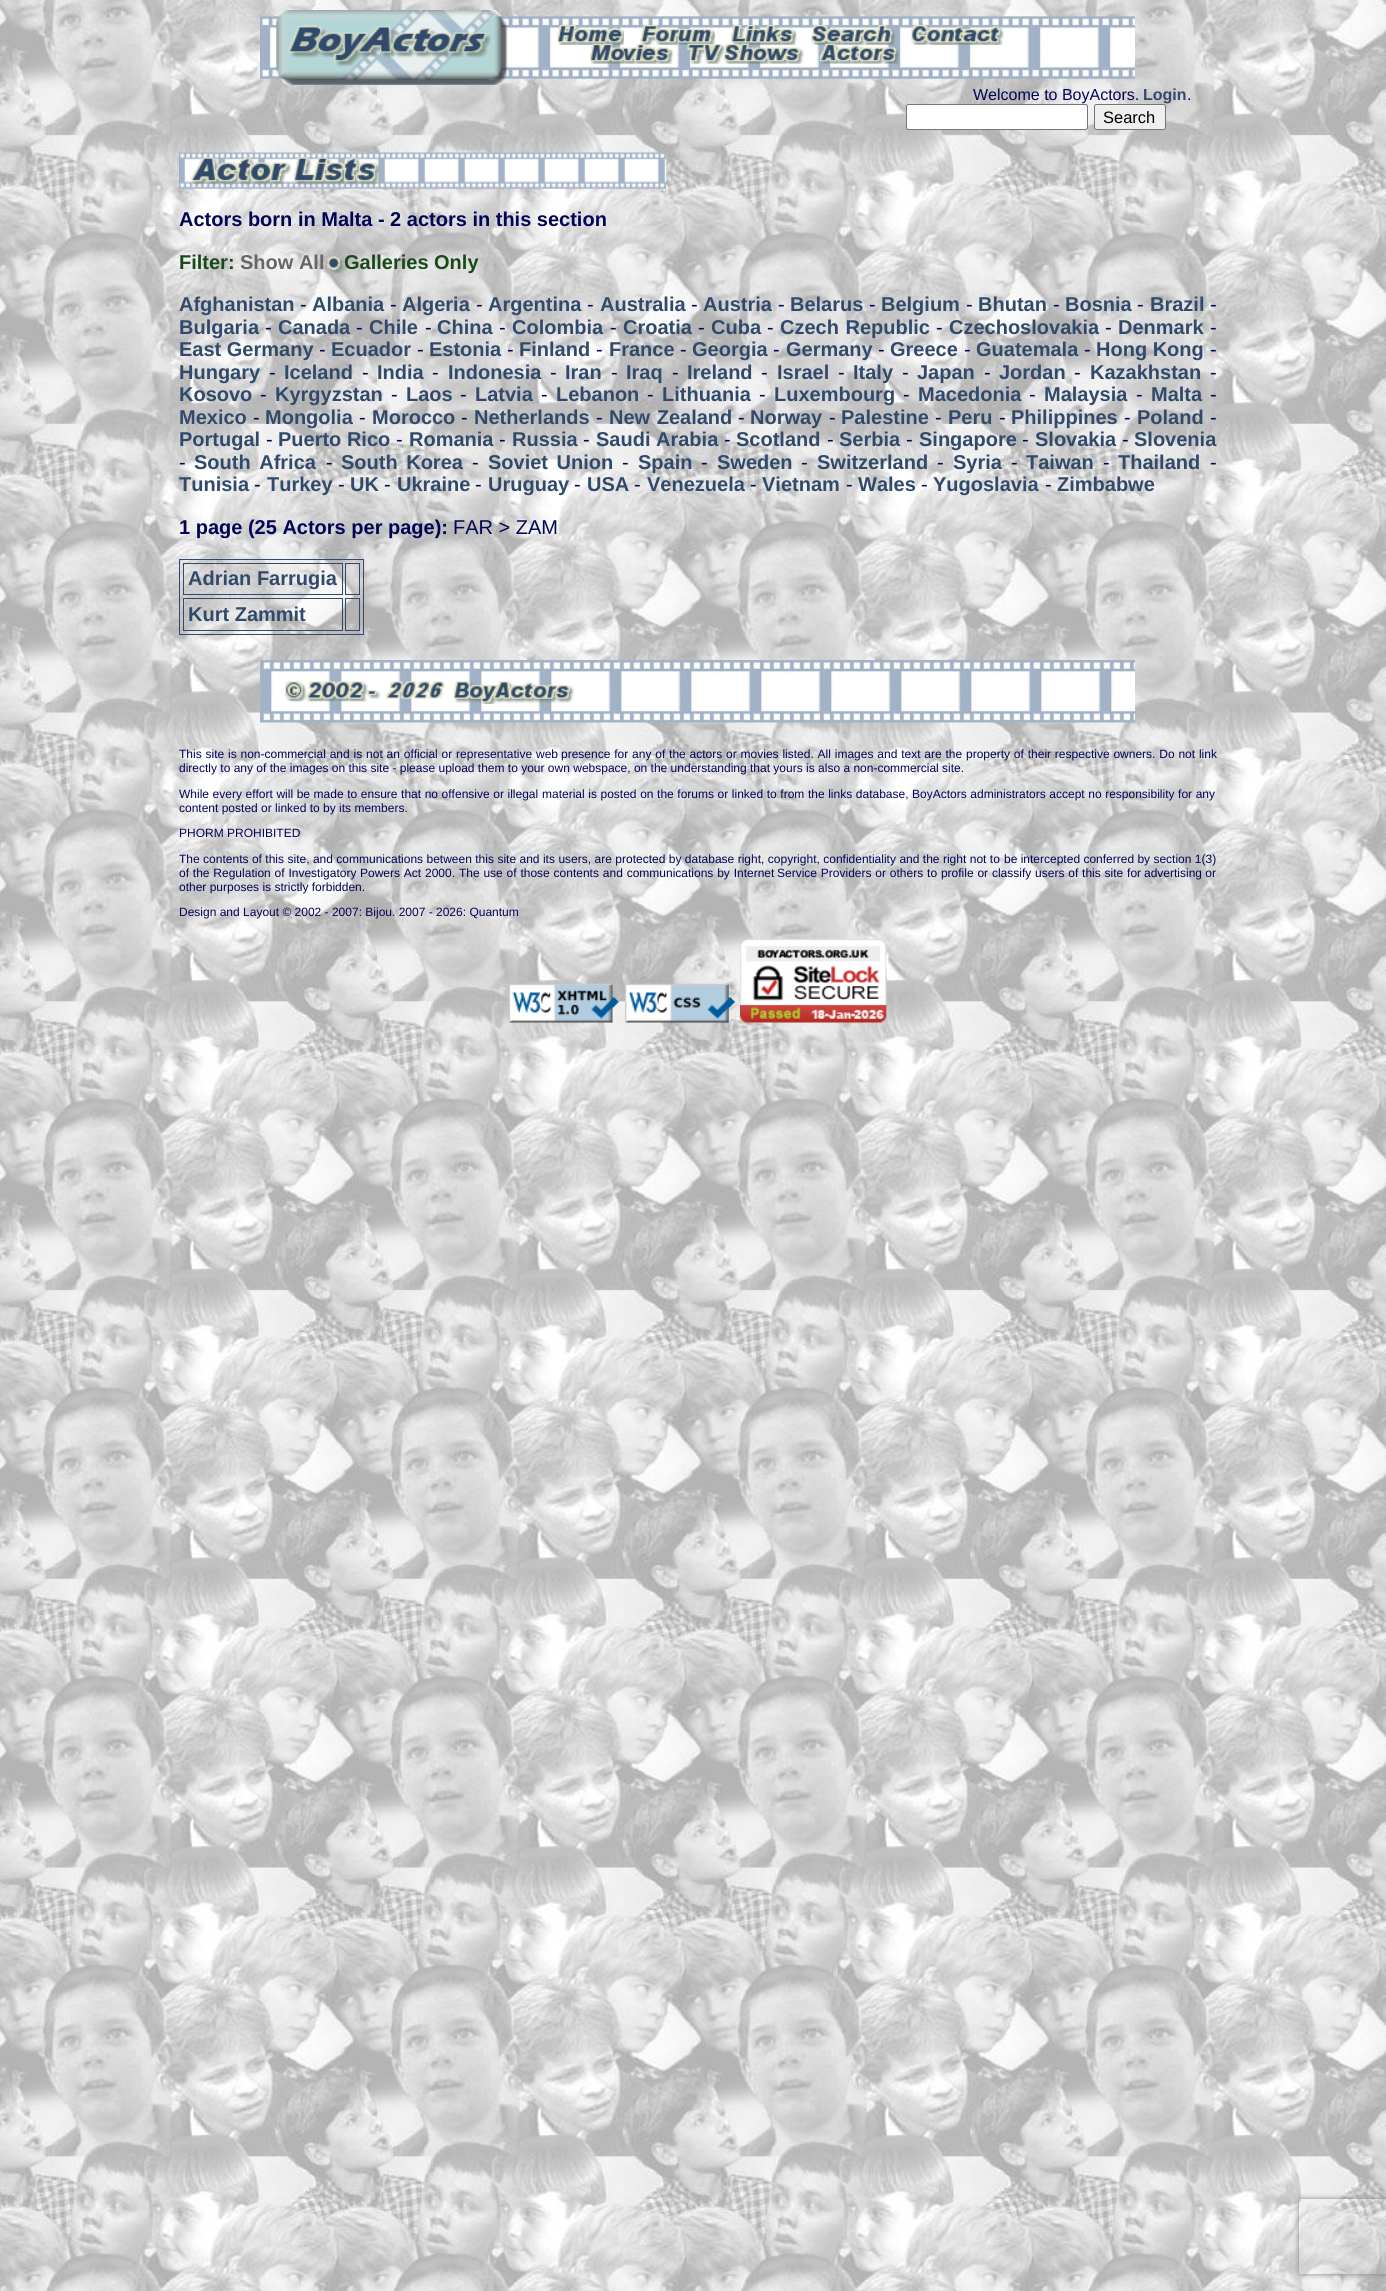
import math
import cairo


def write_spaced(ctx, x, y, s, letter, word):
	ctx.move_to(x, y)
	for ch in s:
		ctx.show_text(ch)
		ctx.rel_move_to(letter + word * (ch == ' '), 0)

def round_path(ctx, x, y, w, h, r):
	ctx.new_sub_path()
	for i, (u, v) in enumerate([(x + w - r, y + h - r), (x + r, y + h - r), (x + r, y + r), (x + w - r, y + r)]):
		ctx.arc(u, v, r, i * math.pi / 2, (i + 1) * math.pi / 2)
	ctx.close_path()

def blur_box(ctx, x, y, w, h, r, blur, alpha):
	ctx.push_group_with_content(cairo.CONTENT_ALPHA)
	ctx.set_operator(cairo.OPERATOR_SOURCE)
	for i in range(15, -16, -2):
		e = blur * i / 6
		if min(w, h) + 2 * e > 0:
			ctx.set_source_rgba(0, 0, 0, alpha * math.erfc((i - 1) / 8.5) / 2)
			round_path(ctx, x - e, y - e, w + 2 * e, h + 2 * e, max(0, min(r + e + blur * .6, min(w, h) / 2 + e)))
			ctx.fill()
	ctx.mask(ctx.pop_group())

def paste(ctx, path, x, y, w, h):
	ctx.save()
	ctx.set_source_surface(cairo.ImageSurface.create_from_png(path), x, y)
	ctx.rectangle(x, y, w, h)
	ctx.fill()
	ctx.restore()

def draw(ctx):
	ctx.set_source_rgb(1, 1, 1)
	ctx.paint()
	paste(ctx, 'media/1.png', 0, 0, 1386, 2291)
	paste(ctx, 'media/2.png', 260, 10, 875, 75)
	paste(ctx, 'media/3.png', 557, 25, 67, 20)
	paste(ctx, 'media/4.png', 640, 25, 75, 20)
	paste(ctx, 'media/5.png', 731, 25, 66, 20)
	paste(ctx, 'media/6.png', 811, 25, 84, 20)
	paste(ctx, 'media/7.png', 911, 25, 93, 20)
	paste(ctx, 'media/8.png', 590, 43, 83, 21)
	paste(ctx, 'media/9.png', 687, 43, 117, 21)
	paste(ctx, 'media/10.png', 820, 43, 79, 21)
	ctx.select_font_face('Liberation Sans')
	ctx.set_font_size(16)
	ctx.set_source_rgb(0.008, 0.016, 0.337)
	ctx.move_to(973, 100)
	ctx.show_text('Welcome to BoyActors.')
	ctx.select_font_face('Liberation Sans', cairo.FONT_SLANT_NORMAL, cairo.FONT_WEIGHT_BOLD)
	ctx.set_source_rgb(0.192, 0.29, 0.42)
	ctx.move_to(1143, 100)
	ctx.show_text('Login')
	ctx.select_font_face('Liberation Sans')
	ctx.set_source_rgb(0.008, 0.016, 0.337)
	ctx.move_to(1187, 100)
	ctx.show_text('.')
	ctx.set_source_rgb(1, 1, 1)
	round_path(ctx, 906.5, 104.5, 181, 25, 2)
	ctx.fill_preserve()
	ctx.set_source_rgb(0.463, 0.463, 0.463)
	ctx.set_line_width(1)
	ctx.stroke()
	ctx.set_source_rgb(0.937, 0.937, 0.937)
	round_path(ctx, 1094.5, 104.5, 71, 25, 2)
	ctx.fill_preserve()
	ctx.set_source_rgb(0.463, 0.463, 0.463)
	ctx.stroke()
	ctx.set_font_size(16.5)
	ctx.set_source_rgb(0, 0, 0)
	ctx.move_to(1103, 123)
	ctx.show_text('Search')
	paste(ctx, 'media/11.png', 178, 152, 489, 37)
	paste(ctx, 'media/12.png', 191, 157, 188, 29)
	ctx.select_font_face('Liberation Sans', cairo.FONT_SLANT_NORMAL, cairo.FONT_WEIGHT_BOLD)
	ctx.set_font_size(20)
	ctx.set_source_rgb(0.008, 0.016, 0.337)
	ctx.move_to(179, 226)
	ctx.show_text('Actors born in Malta - 2 actors in this section')
	ctx.set_source_rgb(0.094, 0.29, 0.094)
	ctx.move_to(179, 269)
	ctx.show_text('Filter:')
	ctx.set_source_rgb(0.4, 0.4, 0.4)
	ctx.move_to(240, 269)
	ctx.show_text('Show All')
	paste(ctx, 'media/13.png', 327, 256, 17, 18)
	ctx.set_source_rgb(0.094, 0.29, 0.094)
	ctx.move_to(344, 269)
	ctx.show_text('Galleries Only')
	ctx.set_source_rgb(0.192, 0.29, 0.42)
	ctx.move_to(179, 311)
	ctx.show_text('Afghanistan')
	ctx.select_font_face('Liberation Sans')
	ctx.set_source_rgb(0.008, 0.016, 0.337)
	ctx.move_to(300, 311)
	ctx.show_text('-')
	ctx.select_font_face('Liberation Sans', cairo.FONT_SLANT_NORMAL, cairo.FONT_WEIGHT_BOLD)
	ctx.set_source_rgb(0.192, 0.29, 0.42)
	ctx.move_to(312, 311)
	ctx.show_text('Albania')
	ctx.select_font_face('Liberation Sans')
	ctx.set_source_rgb(0.008, 0.016, 0.337)
	ctx.move_to(390, 311)
	ctx.show_text('-')
	ctx.select_font_face('Liberation Sans', cairo.FONT_SLANT_NORMAL, cairo.FONT_WEIGHT_BOLD)
	ctx.set_source_rgb(0.192, 0.29, 0.42)
	ctx.move_to(402, 311)
	ctx.show_text('Algeria')
	ctx.select_font_face('Liberation Sans')
	ctx.set_source_rgb(0.008, 0.016, 0.337)
	ctx.move_to(476, 311)
	ctx.show_text('-')
	ctx.select_font_face('Liberation Sans', cairo.FONT_SLANT_NORMAL, cairo.FONT_WEIGHT_BOLD)
	ctx.set_source_rgb(0.192, 0.29, 0.42)
	ctx.move_to(488, 311)
	ctx.show_text('Argentina')
	ctx.select_font_face('Liberation Sans')
	ctx.set_source_rgb(0.008, 0.016, 0.337)
	ctx.move_to(587, 311)
	ctx.show_text('-')
	ctx.select_font_face('Liberation Sans', cairo.FONT_SLANT_NORMAL, cairo.FONT_WEIGHT_BOLD)
	ctx.set_source_rgb(0.192, 0.29, 0.42)
	ctx.move_to(600, 311)
	ctx.show_text('Australia')
	ctx.select_font_face('Liberation Sans')
	ctx.set_source_rgb(0.008, 0.016, 0.337)
	ctx.move_to(691, 311)
	ctx.show_text('-')
	ctx.select_font_face('Liberation Sans', cairo.FONT_SLANT_NORMAL, cairo.FONT_WEIGHT_BOLD)
	ctx.set_source_rgb(0.192, 0.29, 0.42)
	ctx.move_to(703, 311)
	ctx.show_text('Austria')
	ctx.select_font_face('Liberation Sans')
	ctx.set_source_rgb(0.008, 0.016, 0.337)
	ctx.move_to(778, 311)
	ctx.show_text('-')
	ctx.select_font_face('Liberation Sans', cairo.FONT_SLANT_NORMAL, cairo.FONT_WEIGHT_BOLD)
	ctx.set_source_rgb(0.192, 0.29, 0.42)
	ctx.move_to(790, 311)
	ctx.show_text('Belarus')
	ctx.select_font_face('Liberation Sans')
	ctx.set_source_rgb(0.008, 0.016, 0.337)
	ctx.move_to(869, 311)
	ctx.show_text('-')
	ctx.select_font_face('Liberation Sans', cairo.FONT_SLANT_NORMAL, cairo.FONT_WEIGHT_BOLD)
	ctx.set_source_rgb(0.192, 0.29, 0.42)
	ctx.move_to(881, 311)
	ctx.show_text('Belgium')
	ctx.select_font_face('Liberation Sans')
	ctx.set_source_rgb(0.008, 0.016, 0.337)
	ctx.move_to(966, 311)
	ctx.show_text('-')
	ctx.select_font_face('Liberation Sans', cairo.FONT_SLANT_NORMAL, cairo.FONT_WEIGHT_BOLD)
	ctx.set_source_rgb(0.192, 0.29, 0.42)
	ctx.move_to(978, 311)
	ctx.show_text('Bhutan')
	ctx.select_font_face('Liberation Sans')
	ctx.set_source_rgb(0.008, 0.016, 0.337)
	ctx.move_to(1053, 311)
	ctx.show_text('-')
	ctx.select_font_face('Liberation Sans', cairo.FONT_SLANT_NORMAL, cairo.FONT_WEIGHT_BOLD)
	ctx.set_source_rgb(0.192, 0.29, 0.42)
	ctx.move_to(1065, 311)
	ctx.show_text('Bosnia')
	ctx.select_font_face('Liberation Sans')
	ctx.set_source_rgb(0.008, 0.016, 0.337)
	ctx.move_to(1137, 311)
	ctx.show_text('-')
	ctx.select_font_face('Liberation Sans', cairo.FONT_SLANT_NORMAL, cairo.FONT_WEIGHT_BOLD)
	ctx.set_source_rgb(0.192, 0.29, 0.42)
	ctx.move_to(1150, 311)
	ctx.show_text('Brazil')
	ctx.select_font_face('Liberation Sans')
	ctx.set_source_rgb(0.008, 0.016, 0.337)
	ctx.move_to(1210, 311)
	ctx.show_text('-')
	ctx.select_font_face('Liberation Sans', cairo.FONT_SLANT_NORMAL, cairo.FONT_WEIGHT_BOLD)
	ctx.set_source_rgb(0.192, 0.29, 0.42)
	ctx.move_to(179, 334)
	ctx.show_text('Bulgaria')
	ctx.select_font_face('Liberation Sans')
	ctx.set_source_rgb(0.008, 0.016, 0.337)
	ctx.move_to(265, 334)
	ctx.show_text('-')
	ctx.select_font_face('Liberation Sans', cairo.FONT_SLANT_NORMAL, cairo.FONT_WEIGHT_BOLD)
	ctx.set_source_rgb(0.192, 0.29, 0.42)
	ctx.move_to(278, 334)
	ctx.show_text('Canada')
	ctx.select_font_face('Liberation Sans')
	ctx.set_source_rgb(0.008, 0.016, 0.337)
	ctx.move_to(356, 334)
	ctx.show_text('-')
	ctx.select_font_face('Liberation Sans', cairo.FONT_SLANT_NORMAL, cairo.FONT_WEIGHT_BOLD)
	ctx.set_source_rgb(0.192, 0.29, 0.42)
	ctx.move_to(369, 334)
	ctx.show_text('Chile')
	ctx.select_font_face('Liberation Sans')
	ctx.set_source_rgb(0.008, 0.016, 0.337)
	ctx.move_to(425, 334)
	ctx.show_text('-')
	ctx.select_font_face('Liberation Sans', cairo.FONT_SLANT_NORMAL, cairo.FONT_WEIGHT_BOLD)
	ctx.set_source_rgb(0.192, 0.29, 0.42)
	ctx.move_to(437, 334)
	ctx.show_text('China')
	ctx.select_font_face('Liberation Sans')
	ctx.set_source_rgb(0.008, 0.016, 0.337)
	ctx.move_to(499, 334)
	ctx.show_text('-')
	ctx.select_font_face('Liberation Sans', cairo.FONT_SLANT_NORMAL, cairo.FONT_WEIGHT_BOLD)
	ctx.set_source_rgb(0.192, 0.29, 0.42)
	ctx.move_to(512, 334)
	ctx.show_text('Colombia')
	ctx.select_font_face('Liberation Sans')
	ctx.set_source_rgb(0.008, 0.016, 0.337)
	ctx.move_to(610, 334)
	ctx.show_text('-')
	ctx.select_font_face('Liberation Sans', cairo.FONT_SLANT_NORMAL, cairo.FONT_WEIGHT_BOLD)
	ctx.set_source_rgb(0.192, 0.29, 0.42)
	ctx.move_to(623, 334)
	ctx.show_text('Croatia')
	ctx.select_font_face('Liberation Sans')
	ctx.set_source_rgb(0.008, 0.016, 0.337)
	ctx.move_to(698, 334)
	ctx.show_text('-')
	ctx.select_font_face('Liberation Sans', cairo.FONT_SLANT_NORMAL, cairo.FONT_WEIGHT_BOLD)
	ctx.set_source_rgb(0.192, 0.29, 0.42)
	ctx.move_to(711, 334)
	ctx.show_text('Cuba')
	ctx.select_font_face('Liberation Sans')
	ctx.set_source_rgb(0.008, 0.016, 0.337)
	ctx.move_to(767, 334)
	ctx.show_text('-')
	ctx.select_font_face('Liberation Sans', cairo.FONT_SLANT_NORMAL, cairo.FONT_WEIGHT_BOLD)
	ctx.set_source_rgb(0.192, 0.29, 0.42)
	write_spaced(ctx, 780, 334, 'Czech Republic', 0, 1)
	ctx.select_font_face('Liberation Sans')
	ctx.set_source_rgb(0.008, 0.016, 0.337)
	ctx.move_to(936, 334)
	ctx.show_text('-')
	ctx.select_font_face('Liberation Sans', cairo.FONT_SLANT_NORMAL, cairo.FONT_WEIGHT_BOLD)
	ctx.set_source_rgb(0.192, 0.29, 0.42)
	ctx.move_to(949, 334)
	ctx.show_text('Czechoslovakia')
	ctx.select_font_face('Liberation Sans')
	ctx.set_source_rgb(0.008, 0.016, 0.337)
	ctx.move_to(1105, 334)
	ctx.show_text('-')
	ctx.select_font_face('Liberation Sans', cairo.FONT_SLANT_NORMAL, cairo.FONT_WEIGHT_BOLD)
	ctx.set_source_rgb(0.192, 0.29, 0.42)
	ctx.move_to(1118, 334)
	ctx.show_text('Denmark')
	ctx.select_font_face('Liberation Sans')
	ctx.set_source_rgb(0.008, 0.016, 0.337)
	ctx.move_to(1210, 334)
	ctx.show_text('-')
	ctx.select_font_face('Liberation Sans', cairo.FONT_SLANT_NORMAL, cairo.FONT_WEIGHT_BOLD)
	ctx.set_source_rgb(0.192, 0.29, 0.42)
	ctx.move_to(179, 356)
	ctx.show_text('East Germany')
	ctx.select_font_face('Liberation Sans')
	ctx.set_source_rgb(0.008, 0.016, 0.337)
	ctx.move_to(319, 356)
	ctx.show_text('-')
	ctx.select_font_face('Liberation Sans', cairo.FONT_SLANT_NORMAL, cairo.FONT_WEIGHT_BOLD)
	ctx.set_source_rgb(0.192, 0.29, 0.42)
	ctx.move_to(331, 356)
	ctx.show_text('Ecuador')
	ctx.select_font_face('Liberation Sans')
	ctx.set_source_rgb(0.008, 0.016, 0.337)
	ctx.move_to(417, 356)
	ctx.show_text('-')
	ctx.select_font_face('Liberation Sans', cairo.FONT_SLANT_NORMAL, cairo.FONT_WEIGHT_BOLD)
	ctx.set_source_rgb(0.192, 0.29, 0.42)
	ctx.move_to(429, 356)
	ctx.show_text('Estonia')
	ctx.select_font_face('Liberation Sans')
	ctx.set_source_rgb(0.008, 0.016, 0.337)
	ctx.move_to(507, 356)
	ctx.show_text('-')
	ctx.select_font_face('Liberation Sans', cairo.FONT_SLANT_NORMAL, cairo.FONT_WEIGHT_BOLD)
	ctx.set_source_rgb(0.192, 0.29, 0.42)
	ctx.move_to(519, 356)
	ctx.show_text('Finland')
	ctx.select_font_face('Liberation Sans')
	ctx.set_source_rgb(0.008, 0.016, 0.337)
	ctx.move_to(596, 356)
	ctx.show_text('-')
	ctx.select_font_face('Liberation Sans', cairo.FONT_SLANT_NORMAL, cairo.FONT_WEIGHT_BOLD)
	ctx.set_source_rgb(0.192, 0.29, 0.42)
	ctx.move_to(609, 356)
	ctx.show_text('France')
	ctx.select_font_face('Liberation Sans')
	ctx.set_source_rgb(0.008, 0.016, 0.337)
	ctx.move_to(680, 356)
	ctx.show_text('-')
	ctx.select_font_face('Liberation Sans', cairo.FONT_SLANT_NORMAL, cairo.FONT_WEIGHT_BOLD)
	ctx.set_source_rgb(0.192, 0.29, 0.42)
	ctx.move_to(692, 356)
	ctx.show_text('Georgia')
	ctx.select_font_face('Liberation Sans')
	ctx.set_source_rgb(0.008, 0.016, 0.337)
	ctx.move_to(773, 356)
	ctx.show_text('-')
	ctx.select_font_face('Liberation Sans', cairo.FONT_SLANT_NORMAL, cairo.FONT_WEIGHT_BOLD)
	ctx.set_source_rgb(0.192, 0.29, 0.42)
	ctx.move_to(786, 356)
	ctx.show_text('Germany')
	ctx.select_font_face('Liberation Sans')
	ctx.set_source_rgb(0.008, 0.016, 0.337)
	ctx.move_to(878, 356)
	ctx.show_text('-')
	ctx.select_font_face('Liberation Sans', cairo.FONT_SLANT_NORMAL, cairo.FONT_WEIGHT_BOLD)
	ctx.set_source_rgb(0.192, 0.29, 0.42)
	ctx.move_to(890, 356)
	ctx.show_text('Greece')
	ctx.select_font_face('Liberation Sans')
	ctx.set_source_rgb(0.008, 0.016, 0.337)
	ctx.move_to(964, 356)
	ctx.show_text('-')
	ctx.select_font_face('Liberation Sans', cairo.FONT_SLANT_NORMAL, cairo.FONT_WEIGHT_BOLD)
	ctx.set_source_rgb(0.192, 0.29, 0.42)
	ctx.move_to(976, 356)
	ctx.show_text('Guatemala')
	ctx.select_font_face('Liberation Sans')
	ctx.set_source_rgb(0.008, 0.016, 0.337)
	ctx.move_to(1084, 356)
	ctx.show_text('-')
	ctx.select_font_face('Liberation Sans', cairo.FONT_SLANT_NORMAL, cairo.FONT_WEIGHT_BOLD)
	ctx.set_source_rgb(0.192, 0.29, 0.42)
	ctx.move_to(1096, 356)
	ctx.show_text('Hong Kong')
	ctx.select_font_face('Liberation Sans')
	ctx.set_source_rgb(0.008, 0.016, 0.337)
	ctx.move_to(1210, 356)
	ctx.show_text('-')
	ctx.select_font_face('Liberation Sans', cairo.FONT_SLANT_NORMAL, cairo.FONT_WEIGHT_BOLD)
	ctx.set_source_rgb(0.192, 0.29, 0.42)
	ctx.move_to(179, 379)
	ctx.show_text('Hungary')
	ctx.select_font_face('Liberation Sans')
	ctx.set_source_rgb(0.008, 0.016, 0.337)
	ctx.move_to(269, 379)
	ctx.show_text('-')
	ctx.select_font_face('Liberation Sans', cairo.FONT_SLANT_NORMAL, cairo.FONT_WEIGHT_BOLD)
	ctx.set_source_rgb(0.192, 0.29, 0.42)
	ctx.move_to(284, 379)
	ctx.show_text('Iceland')
	ctx.select_font_face('Liberation Sans')
	ctx.set_source_rgb(0.008, 0.016, 0.337)
	ctx.move_to(362, 379)
	ctx.show_text('-')
	ctx.select_font_face('Liberation Sans', cairo.FONT_SLANT_NORMAL, cairo.FONT_WEIGHT_BOLD)
	ctx.set_source_rgb(0.192, 0.29, 0.42)
	ctx.move_to(377, 379)
	ctx.show_text('India')
	ctx.select_font_face('Liberation Sans')
	ctx.set_source_rgb(0.008, 0.016, 0.337)
	ctx.move_to(432, 379)
	ctx.show_text('-')
	ctx.select_font_face('Liberation Sans', cairo.FONT_SLANT_NORMAL, cairo.FONT_WEIGHT_BOLD)
	ctx.set_source_rgb(0.192, 0.29, 0.42)
	ctx.move_to(448, 379)
	ctx.show_text('Indonesia')
	ctx.select_font_face('Liberation Sans')
	ctx.set_source_rgb(0.008, 0.016, 0.337)
	ctx.move_to(550, 379)
	ctx.show_text('-')
	ctx.select_font_face('Liberation Sans', cairo.FONT_SLANT_NORMAL, cairo.FONT_WEIGHT_BOLD)
	ctx.set_source_rgb(0.192, 0.29, 0.42)
	ctx.move_to(565, 379)
	ctx.show_text('Iran')
	ctx.select_font_face('Liberation Sans')
	ctx.set_source_rgb(0.008, 0.016, 0.337)
	ctx.move_to(611, 379)
	ctx.show_text('-')
	ctx.select_font_face('Liberation Sans', cairo.FONT_SLANT_NORMAL, cairo.FONT_WEIGHT_BOLD)
	ctx.set_source_rgb(0.192, 0.29, 0.42)
	ctx.move_to(626, 379)
	ctx.show_text('Iraq')
	ctx.select_font_face('Liberation Sans')
	ctx.set_source_rgb(0.008, 0.016, 0.337)
	ctx.move_to(672, 379)
	ctx.show_text('-')
	ctx.select_font_face('Liberation Sans', cairo.FONT_SLANT_NORMAL, cairo.FONT_WEIGHT_BOLD)
	ctx.set_source_rgb(0.192, 0.29, 0.42)
	ctx.move_to(687, 379)
	ctx.show_text('Ireland')
	ctx.select_font_face('Liberation Sans')
	ctx.set_source_rgb(0.008, 0.016, 0.337)
	ctx.move_to(761, 379)
	ctx.show_text('-')
	ctx.select_font_face('Liberation Sans', cairo.FONT_SLANT_NORMAL, cairo.FONT_WEIGHT_BOLD)
	ctx.set_source_rgb(0.192, 0.29, 0.42)
	ctx.move_to(777, 379)
	ctx.show_text('Israel')
	ctx.select_font_face('Liberation Sans')
	ctx.set_source_rgb(0.008, 0.016, 0.337)
	ctx.move_to(838, 379)
	ctx.show_text('-')
	ctx.select_font_face('Liberation Sans', cairo.FONT_SLANT_NORMAL, cairo.FONT_WEIGHT_BOLD)
	ctx.set_source_rgb(0.192, 0.29, 0.42)
	ctx.move_to(853, 379)
	ctx.show_text('Italy')
	ctx.select_font_face('Liberation Sans')
	ctx.set_source_rgb(0.008, 0.016, 0.337)
	ctx.move_to(902, 379)
	ctx.show_text('-')
	ctx.select_font_face('Liberation Sans', cairo.FONT_SLANT_NORMAL, cairo.FONT_WEIGHT_BOLD)
	ctx.set_source_rgb(0.192, 0.29, 0.42)
	ctx.move_to(917, 379)
	ctx.show_text('Japan')
	ctx.select_font_face('Liberation Sans')
	ctx.set_source_rgb(0.008, 0.016, 0.337)
	ctx.move_to(984, 379)
	ctx.show_text('-')
	ctx.select_font_face('Liberation Sans', cairo.FONT_SLANT_NORMAL, cairo.FONT_WEIGHT_BOLD)
	ctx.set_source_rgb(0.192, 0.29, 0.42)
	ctx.move_to(999, 379)
	ctx.show_text('Jordan')
	ctx.select_font_face('Liberation Sans')
	ctx.set_source_rgb(0.008, 0.016, 0.337)
	ctx.move_to(1074, 379)
	ctx.show_text('-')
	ctx.select_font_face('Liberation Sans', cairo.FONT_SLANT_NORMAL, cairo.FONT_WEIGHT_BOLD)
	ctx.set_source_rgb(0.192, 0.29, 0.42)
	ctx.move_to(1090, 379)
	ctx.show_text('Kazakhstan')
	ctx.select_font_face('Liberation Sans')
	ctx.set_source_rgb(0.008, 0.016, 0.337)
	ctx.move_to(1210, 379)
	ctx.show_text('-')
	ctx.select_font_face('Liberation Sans', cairo.FONT_SLANT_NORMAL, cairo.FONT_WEIGHT_BOLD)
	ctx.set_source_rgb(0.192, 0.29, 0.42)
	ctx.move_to(179, 401)
	ctx.show_text('Kosovo')
	ctx.select_font_face('Liberation Sans')
	ctx.set_source_rgb(0.008, 0.016, 0.337)
	ctx.move_to(260, 401)
	ctx.show_text('-')
	ctx.select_font_face('Liberation Sans', cairo.FONT_SLANT_NORMAL, cairo.FONT_WEIGHT_BOLD)
	ctx.set_source_rgb(0.192, 0.29, 0.42)
	ctx.move_to(275, 401)
	ctx.show_text('Kyrgyzstan')
	ctx.select_font_face('Liberation Sans')
	ctx.set_source_rgb(0.008, 0.016, 0.337)
	ctx.move_to(391, 401)
	ctx.show_text('-')
	ctx.select_font_face('Liberation Sans', cairo.FONT_SLANT_NORMAL, cairo.FONT_WEIGHT_BOLD)
	ctx.set_source_rgb(0.192, 0.29, 0.42)
	ctx.move_to(406, 401)
	ctx.show_text('Laos')
	ctx.select_font_face('Liberation Sans')
	ctx.set_source_rgb(0.008, 0.016, 0.337)
	ctx.move_to(460, 401)
	ctx.show_text('-')
	ctx.select_font_face('Liberation Sans', cairo.FONT_SLANT_NORMAL, cairo.FONT_WEIGHT_BOLD)
	ctx.set_source_rgb(0.192, 0.29, 0.42)
	ctx.move_to(475, 401)
	ctx.show_text('Latvia')
	ctx.select_font_face('Liberation Sans')
	ctx.set_source_rgb(0.008, 0.016, 0.337)
	ctx.move_to(541, 401)
	ctx.show_text('-')
	ctx.select_font_face('Liberation Sans', cairo.FONT_SLANT_NORMAL, cairo.FONT_WEIGHT_BOLD)
	ctx.set_source_rgb(0.192, 0.29, 0.42)
	ctx.move_to(556, 401)
	ctx.show_text('Lebanon')
	ctx.select_font_face('Liberation Sans')
	ctx.set_source_rgb(0.008, 0.016, 0.337)
	ctx.move_to(647, 401)
	ctx.show_text('-')
	ctx.select_font_face('Liberation Sans', cairo.FONT_SLANT_NORMAL, cairo.FONT_WEIGHT_BOLD)
	ctx.set_source_rgb(0.192, 0.29, 0.42)
	ctx.move_to(662, 401)
	ctx.show_text('Lithuania')
	ctx.select_font_face('Liberation Sans')
	ctx.set_source_rgb(0.008, 0.016, 0.337)
	ctx.move_to(759, 401)
	ctx.show_text('-')
	ctx.select_font_face('Liberation Sans', cairo.FONT_SLANT_NORMAL, cairo.FONT_WEIGHT_BOLD)
	ctx.set_source_rgb(0.192, 0.29, 0.42)
	ctx.move_to(774, 401)
	ctx.show_text('Luxembourg')
	ctx.select_font_face('Liberation Sans')
	ctx.set_source_rgb(0.008, 0.016, 0.337)
	ctx.move_to(903, 401)
	ctx.show_text('-')
	ctx.select_font_face('Liberation Sans', cairo.FONT_SLANT_NORMAL, cairo.FONT_WEIGHT_BOLD)
	ctx.set_source_rgb(0.192, 0.29, 0.42)
	ctx.move_to(918, 401)
	ctx.show_text('Macedonia')
	ctx.select_font_face('Liberation Sans')
	ctx.set_source_rgb(0.008, 0.016, 0.337)
	ctx.move_to(1029, 401)
	ctx.show_text('-')
	ctx.select_font_face('Liberation Sans', cairo.FONT_SLANT_NORMAL, cairo.FONT_WEIGHT_BOLD)
	ctx.set_source_rgb(0.192, 0.29, 0.42)
	ctx.move_to(1044, 401)
	ctx.show_text('Malaysia')
	ctx.select_font_face('Liberation Sans')
	ctx.set_source_rgb(0.008, 0.016, 0.337)
	ctx.move_to(1136, 401)
	ctx.show_text('-')
	ctx.select_font_face('Liberation Sans', cairo.FONT_SLANT_NORMAL, cairo.FONT_WEIGHT_BOLD)
	ctx.set_source_rgb(0.192, 0.29, 0.42)
	ctx.move_to(1151, 401)
	ctx.show_text('Malta')
	ctx.select_font_face('Liberation Sans')
	ctx.set_source_rgb(0.008, 0.016, 0.337)
	ctx.move_to(1210, 401)
	ctx.show_text('-')
	ctx.select_font_face('Liberation Sans', cairo.FONT_SLANT_NORMAL, cairo.FONT_WEIGHT_BOLD)
	ctx.set_source_rgb(0.192, 0.29, 0.42)
	ctx.move_to(179, 424)
	ctx.show_text('Mexico')
	ctx.select_font_face('Liberation Sans')
	ctx.set_source_rgb(0.008, 0.016, 0.337)
	ctx.move_to(253, 424)
	ctx.show_text('-')
	ctx.select_font_face('Liberation Sans', cairo.FONT_SLANT_NORMAL, cairo.FONT_WEIGHT_BOLD)
	ctx.set_source_rgb(0.192, 0.29, 0.42)
	ctx.move_to(265, 424)
	ctx.show_text('Mongolia')
	ctx.select_font_face('Liberation Sans')
	ctx.set_source_rgb(0.008, 0.016, 0.337)
	ctx.move_to(359, 424)
	ctx.show_text('-')
	ctx.select_font_face('Liberation Sans', cairo.FONT_SLANT_NORMAL, cairo.FONT_WEIGHT_BOLD)
	ctx.set_source_rgb(0.192, 0.29, 0.42)
	ctx.move_to(372, 424)
	ctx.show_text('Morocco')
	ctx.select_font_face('Liberation Sans')
	ctx.set_source_rgb(0.008, 0.016, 0.337)
	ctx.move_to(461, 424)
	ctx.show_text('-')
	ctx.select_font_face('Liberation Sans', cairo.FONT_SLANT_NORMAL, cairo.FONT_WEIGHT_BOLD)
	ctx.set_source_rgb(0.192, 0.29, 0.42)
	ctx.move_to(474, 424)
	ctx.show_text('Netherlands')
	ctx.select_font_face('Liberation Sans')
	ctx.set_source_rgb(0.008, 0.016, 0.337)
	ctx.move_to(596, 424)
	ctx.show_text('-')
	ctx.select_font_face('Liberation Sans', cairo.FONT_SLANT_NORMAL, cairo.FONT_WEIGHT_BOLD)
	ctx.set_source_rgb(0.192, 0.29, 0.42)
	write_spaced(ctx, 609, 424, 'New Zealand', 0, 1)
	ctx.select_font_face('Liberation Sans')
	ctx.set_source_rgb(0.008, 0.016, 0.337)
	ctx.move_to(738, 424)
	ctx.show_text('-')
	ctx.select_font_face('Liberation Sans', cairo.FONT_SLANT_NORMAL, cairo.FONT_WEIGHT_BOLD)
	ctx.set_source_rgb(0.192, 0.29, 0.42)
	ctx.move_to(750, 424)
	ctx.show_text('Norway')
	ctx.select_font_face('Liberation Sans')
	ctx.set_source_rgb(0.008, 0.016, 0.337)
	ctx.move_to(829, 424)
	ctx.show_text('-')
	ctx.select_font_face('Liberation Sans', cairo.FONT_SLANT_NORMAL, cairo.FONT_WEIGHT_BOLD)
	ctx.set_source_rgb(0.192, 0.29, 0.42)
	ctx.move_to(841, 424)
	ctx.show_text('Palestine')
	ctx.select_font_face('Liberation Sans')
	ctx.set_source_rgb(0.008, 0.016, 0.337)
	ctx.move_to(935, 424)
	ctx.show_text('-')
	ctx.select_font_face('Liberation Sans', cairo.FONT_SLANT_NORMAL, cairo.FONT_WEIGHT_BOLD)
	ctx.set_source_rgb(0.192, 0.29, 0.42)
	ctx.move_to(948, 424)
	ctx.show_text('Peru')
	ctx.select_font_face('Liberation Sans')
	ctx.set_source_rgb(0.008, 0.016, 0.337)
	ctx.move_to(999, 424)
	ctx.show_text('-')
	ctx.select_font_face('Liberation Sans', cairo.FONT_SLANT_NORMAL, cairo.FONT_WEIGHT_BOLD)
	ctx.set_source_rgb(0.192, 0.29, 0.42)
	ctx.move_to(1011, 424)
	ctx.show_text('Philippines')
	ctx.select_font_face('Liberation Sans')
	ctx.set_source_rgb(0.008, 0.016, 0.337)
	ctx.move_to(1124, 424)
	ctx.show_text('-')
	ctx.select_font_face('Liberation Sans', cairo.FONT_SLANT_NORMAL, cairo.FONT_WEIGHT_BOLD)
	ctx.set_source_rgb(0.192, 0.29, 0.42)
	ctx.move_to(1137, 424)
	ctx.show_text('Poland')
	ctx.select_font_face('Liberation Sans')
	ctx.set_source_rgb(0.008, 0.016, 0.337)
	ctx.move_to(1210, 424)
	ctx.show_text('-')
	ctx.select_font_face('Liberation Sans', cairo.FONT_SLANT_NORMAL, cairo.FONT_WEIGHT_BOLD)
	ctx.set_source_rgb(0.192, 0.29, 0.42)
	ctx.move_to(179, 446)
	ctx.show_text('Portugal')
	ctx.select_font_face('Liberation Sans')
	ctx.set_source_rgb(0.008, 0.016, 0.337)
	ctx.move_to(266, 446)
	ctx.show_text('-')
	ctx.select_font_face('Liberation Sans', cairo.FONT_SLANT_NORMAL, cairo.FONT_WEIGHT_BOLD)
	ctx.set_source_rgb(0.192, 0.29, 0.42)
	ctx.move_to(278, 446)
	ctx.show_text('Puerto Rico')
	ctx.select_font_face('Liberation Sans')
	ctx.set_source_rgb(0.008, 0.016, 0.337)
	ctx.move_to(396, 446)
	ctx.show_text('-')
	ctx.select_font_face('Liberation Sans', cairo.FONT_SLANT_NORMAL, cairo.FONT_WEIGHT_BOLD)
	ctx.set_source_rgb(0.192, 0.29, 0.42)
	ctx.move_to(409, 446)
	ctx.show_text('Romania')
	ctx.select_font_face('Liberation Sans')
	ctx.set_source_rgb(0.008, 0.016, 0.337)
	ctx.move_to(499, 446)
	ctx.show_text('-')
	ctx.select_font_face('Liberation Sans', cairo.FONT_SLANT_NORMAL, cairo.FONT_WEIGHT_BOLD)
	ctx.set_source_rgb(0.192, 0.29, 0.42)
	ctx.move_to(512, 446)
	ctx.show_text('Russia')
	ctx.select_font_face('Liberation Sans')
	ctx.set_source_rgb(0.008, 0.016, 0.337)
	ctx.move_to(583, 446)
	ctx.show_text('-')
	ctx.select_font_face('Liberation Sans', cairo.FONT_SLANT_NORMAL, cairo.FONT_WEIGHT_BOLD)
	ctx.set_source_rgb(0.192, 0.29, 0.42)
	ctx.move_to(596, 446)
	ctx.show_text('Saudi Arabia')
	ctx.select_font_face('Liberation Sans')
	ctx.set_source_rgb(0.008, 0.016, 0.337)
	ctx.move_to(724, 446)
	ctx.show_text('-')
	ctx.select_font_face('Liberation Sans', cairo.FONT_SLANT_NORMAL, cairo.FONT_WEIGHT_BOLD)
	ctx.set_source_rgb(0.192, 0.29, 0.42)
	ctx.move_to(736, 446)
	ctx.show_text('Scotland')
	ctx.select_font_face('Liberation Sans')
	ctx.set_source_rgb(0.008, 0.016, 0.337)
	ctx.move_to(827, 446)
	ctx.show_text('-')
	ctx.select_font_face('Liberation Sans', cairo.FONT_SLANT_NORMAL, cairo.FONT_WEIGHT_BOLD)
	ctx.set_source_rgb(0.192, 0.29, 0.42)
	ctx.move_to(839, 446)
	ctx.show_text('Serbia')
	ctx.select_font_face('Liberation Sans')
	ctx.set_source_rgb(0.008, 0.016, 0.337)
	ctx.move_to(906, 446)
	ctx.show_text('-')
	ctx.select_font_face('Liberation Sans', cairo.FONT_SLANT_NORMAL, cairo.FONT_WEIGHT_BOLD)
	ctx.set_source_rgb(0.192, 0.29, 0.42)
	ctx.move_to(919, 446)
	ctx.show_text('Singapore')
	ctx.select_font_face('Liberation Sans')
	ctx.set_source_rgb(0.008, 0.016, 0.337)
	ctx.move_to(1022, 446)
	ctx.show_text('-')
	ctx.select_font_face('Liberation Sans', cairo.FONT_SLANT_NORMAL, cairo.FONT_WEIGHT_BOLD)
	ctx.set_source_rgb(0.192, 0.29, 0.42)
	ctx.move_to(1035, 446)
	ctx.show_text('Slovakia')
	ctx.select_font_face('Liberation Sans')
	ctx.set_source_rgb(0.008, 0.016, 0.337)
	ctx.move_to(1122, 446)
	ctx.show_text('-')
	ctx.select_font_face('Liberation Sans', cairo.FONT_SLANT_NORMAL, cairo.FONT_WEIGHT_BOLD)
	ctx.set_source_rgb(0.192, 0.29, 0.42)
	ctx.move_to(1134, 446)
	ctx.show_text('Slovenia')
	ctx.select_font_face('Liberation Sans')
	ctx.set_source_rgb(0.008, 0.016, 0.337)
	ctx.move_to(179, 469)
	ctx.show_text('-')
	ctx.select_font_face('Liberation Sans', cairo.FONT_SLANT_NORMAL, cairo.FONT_WEIGHT_BOLD)
	ctx.set_source_rgb(0.192, 0.29, 0.42)
	write_spaced(ctx, 194, 469, 'South Africa', 0, 3)
	ctx.select_font_face('Liberation Sans')
	ctx.set_source_rgb(0.008, 0.016, 0.337)
	ctx.move_to(326, 469)
	ctx.show_text('-')
	ctx.select_font_face('Liberation Sans', cairo.FONT_SLANT_NORMAL, cairo.FONT_WEIGHT_BOLD)
	ctx.set_source_rgb(0.192, 0.29, 0.42)
	write_spaced(ctx, 341, 469, 'South Korea', 0, 3)
	ctx.select_font_face('Liberation Sans')
	ctx.set_source_rgb(0.008, 0.016, 0.337)
	ctx.move_to(472, 469)
	ctx.show_text('-')
	ctx.select_font_face('Liberation Sans', cairo.FONT_SLANT_NORMAL, cairo.FONT_WEIGHT_BOLD)
	ctx.set_source_rgb(0.192, 0.29, 0.42)
	write_spaced(ctx, 488, 469, 'Soviet Union', 0, 3)
	ctx.select_font_face('Liberation Sans')
	ctx.set_source_rgb(0.008, 0.016, 0.337)
	ctx.move_to(622, 469)
	ctx.show_text('-')
	ctx.select_font_face('Liberation Sans', cairo.FONT_SLANT_NORMAL, cairo.FONT_WEIGHT_BOLD)
	ctx.set_source_rgb(0.192, 0.29, 0.42)
	ctx.move_to(638, 469)
	ctx.show_text('Spain')
	ctx.select_font_face('Liberation Sans')
	ctx.set_source_rgb(0.008, 0.016, 0.337)
	ctx.move_to(701, 469)
	ctx.show_text('-')
	ctx.select_font_face('Liberation Sans', cairo.FONT_SLANT_NORMAL, cairo.FONT_WEIGHT_BOLD)
	ctx.set_source_rgb(0.192, 0.29, 0.42)
	ctx.move_to(717, 469)
	ctx.show_text('Sweden')
	ctx.select_font_face('Liberation Sans')
	ctx.set_source_rgb(0.008, 0.016, 0.337)
	ctx.move_to(801, 469)
	ctx.show_text('-')
	ctx.select_font_face('Liberation Sans', cairo.FONT_SLANT_NORMAL, cairo.FONT_WEIGHT_BOLD)
	ctx.set_source_rgb(0.192, 0.29, 0.42)
	ctx.move_to(817, 469)
	ctx.show_text('Switzerland')
	ctx.select_font_face('Liberation Sans')
	ctx.set_source_rgb(0.008, 0.016, 0.337)
	ctx.move_to(937, 469)
	ctx.show_text('-')
	ctx.select_font_face('Liberation Sans', cairo.FONT_SLANT_NORMAL, cairo.FONT_WEIGHT_BOLD)
	ctx.set_source_rgb(0.192, 0.29, 0.42)
	ctx.move_to(953, 469)
	ctx.show_text('Syria')
	ctx.select_font_face('Liberation Sans')
	ctx.set_source_rgb(0.008, 0.016, 0.337)
	ctx.move_to(1011, 469)
	ctx.show_text('-')
	ctx.select_font_face('Liberation Sans', cairo.FONT_SLANT_NORMAL, cairo.FONT_WEIGHT_BOLD)
	ctx.set_source_rgb(0.192, 0.29, 0.42)
	ctx.move_to(1026, 469)
	ctx.show_text('Taiwan')
	ctx.select_font_face('Liberation Sans')
	ctx.set_source_rgb(0.008, 0.016, 0.337)
	ctx.move_to(1103, 469)
	ctx.show_text('-')
	ctx.select_font_face('Liberation Sans', cairo.FONT_SLANT_NORMAL, cairo.FONT_WEIGHT_BOLD)
	ctx.set_source_rgb(0.192, 0.29, 0.42)
	ctx.move_to(1118, 469)
	ctx.show_text('Thailand')
	ctx.select_font_face('Liberation Sans')
	ctx.set_source_rgb(0.008, 0.016, 0.337)
	ctx.move_to(1210, 469)
	ctx.show_text('-')
	ctx.select_font_face('Liberation Sans', cairo.FONT_SLANT_NORMAL, cairo.FONT_WEIGHT_BOLD)
	ctx.set_source_rgb(0.192, 0.29, 0.42)
	ctx.move_to(179, 491)
	ctx.show_text('Tunisia')
	ctx.select_font_face('Liberation Sans')
	ctx.set_source_rgb(0.008, 0.016, 0.337)
	ctx.move_to(254, 491)
	ctx.show_text('-')
	ctx.select_font_face('Liberation Sans', cairo.FONT_SLANT_NORMAL, cairo.FONT_WEIGHT_BOLD)
	ctx.set_source_rgb(0.192, 0.29, 0.42)
	ctx.move_to(267, 491)
	ctx.show_text('Turkey')
	ctx.select_font_face('Liberation Sans')
	ctx.set_source_rgb(0.008, 0.016, 0.337)
	ctx.move_to(338, 491)
	ctx.show_text('-')
	ctx.select_font_face('Liberation Sans', cairo.FONT_SLANT_NORMAL, cairo.FONT_WEIGHT_BOLD)
	ctx.set_source_rgb(0.192, 0.29, 0.42)
	ctx.move_to(350, 491)
	ctx.show_text('UK')
	ctx.select_font_face('Liberation Sans')
	ctx.set_source_rgb(0.008, 0.016, 0.337)
	ctx.move_to(384, 491)
	ctx.show_text('-')
	ctx.select_font_face('Liberation Sans', cairo.FONT_SLANT_NORMAL, cairo.FONT_WEIGHT_BOLD)
	ctx.set_source_rgb(0.192, 0.29, 0.42)
	ctx.move_to(397, 491)
	ctx.show_text('Ukraine')
	ctx.select_font_face('Liberation Sans')
	ctx.set_source_rgb(0.008, 0.016, 0.337)
	ctx.move_to(475, 491)
	ctx.show_text('-')
	ctx.select_font_face('Liberation Sans', cairo.FONT_SLANT_NORMAL, cairo.FONT_WEIGHT_BOLD)
	ctx.set_source_rgb(0.192, 0.29, 0.42)
	ctx.move_to(488, 491)
	ctx.show_text('Uruguay')
	ctx.select_font_face('Liberation Sans')
	ctx.set_source_rgb(0.008, 0.016, 0.337)
	ctx.move_to(574, 491)
	ctx.show_text('-')
	ctx.select_font_face('Liberation Sans', cairo.FONT_SLANT_NORMAL, cairo.FONT_WEIGHT_BOLD)
	ctx.set_source_rgb(0.192, 0.29, 0.42)
	ctx.move_to(587, 491)
	ctx.show_text('USA')
	ctx.select_font_face('Liberation Sans')
	ctx.set_source_rgb(0.008, 0.016, 0.337)
	ctx.move_to(634, 491)
	ctx.show_text('-')
	ctx.select_font_face('Liberation Sans', cairo.FONT_SLANT_NORMAL, cairo.FONT_WEIGHT_BOLD)
	ctx.set_source_rgb(0.192, 0.29, 0.42)
	ctx.move_to(647, 491)
	ctx.show_text('Venezuela')
	ctx.select_font_face('Liberation Sans')
	ctx.set_source_rgb(0.008, 0.016, 0.337)
	ctx.move_to(750, 491)
	ctx.show_text('-')
	ctx.select_font_face('Liberation Sans', cairo.FONT_SLANT_NORMAL, cairo.FONT_WEIGHT_BOLD)
	ctx.set_source_rgb(0.192, 0.29, 0.42)
	ctx.move_to(762, 491)
	ctx.show_text('Vietnam')
	ctx.select_font_face('Liberation Sans')
	ctx.set_source_rgb(0.008, 0.016, 0.337)
	ctx.move_to(846, 491)
	ctx.show_text('-')
	ctx.select_font_face('Liberation Sans', cairo.FONT_SLANT_NORMAL, cairo.FONT_WEIGHT_BOLD)
	ctx.set_source_rgb(0.192, 0.29, 0.42)
	ctx.move_to(858, 491)
	ctx.show_text('Wales')
	ctx.select_font_face('Liberation Sans')
	ctx.set_source_rgb(0.008, 0.016, 0.337)
	ctx.move_to(921, 491)
	ctx.show_text('-')
	ctx.select_font_face('Liberation Sans', cairo.FONT_SLANT_NORMAL, cairo.FONT_WEIGHT_BOLD)
	ctx.set_source_rgb(0.192, 0.29, 0.42)
	ctx.move_to(933, 491)
	ctx.show_text('Yugoslavia')
	ctx.select_font_face('Liberation Sans')
	ctx.set_source_rgb(0.008, 0.016, 0.337)
	ctx.move_to(1045, 491)
	ctx.show_text('-')
	ctx.select_font_face('Liberation Sans', cairo.FONT_SLANT_NORMAL, cairo.FONT_WEIGHT_BOLD)
	ctx.set_source_rgb(0.192, 0.29, 0.42)
	ctx.move_to(1057, 491)
	ctx.show_text('Zimbabwe')
	ctx.set_source_rgb(0.008, 0.016, 0.337)
	ctx.move_to(179, 534)
	ctx.show_text('1 page (25 Actors per page):')
	ctx.select_font_face('Liberation Sans')
	ctx.move_to(453, 534)
	ctx.show_text('FAR > ZAM')
	ctx.rectangle(179.5, 559.5, 184, 75)
	ctx.set_source_rgb(0.192, 0.29, 0.42)
	ctx.stroke()
	ctx.rectangle(183.5, 563.5, 159, 31)
	ctx.stroke()
	ctx.select_font_face('Liberation Sans', cairo.FONT_SLANT_NORMAL, cairo.FONT_WEIGHT_BOLD)
	ctx.move_to(188, 585)
	ctx.show_text('Adrian Farrugia')
	ctx.rectangle(345.5, 563.5, 14, 31)
	ctx.stroke()
	ctx.rectangle(183.5, 598.5, 159, 32)
	ctx.stroke()
	ctx.move_to(188, 621)
	ctx.show_text('Kurt Zammit')
	ctx.rectangle(345.5, 598.5, 14, 32)
	ctx.stroke()
	paste(ctx, 'media/14.png', 260, 660, 875, 63)
	paste(ctx, 'media/15.png', 285, 681, 96, 21)
	paste(ctx, 'media/16.png', 386, 681, 60, 18)
	paste(ctx, 'media/17.png', 453, 681, 121, 23)
	ctx.select_font_face('Liberation Sans')
	ctx.set_font_size(12)
	ctx.set_source_rgb(0.008, 0.016, 0.337)
	for x, y, s in [
		(179, 758, 'This site is non-commercial and is not an official or representative web'),
		(561, 758, 'presence for any of the actors or movies listed. All images and text are the'),
		(966, 758, 'property of their respective owners. Do not link'),
	]:
		write_spaced(ctx, x, y, s, 0, 0.5)
	ctx.move_to(179, 772)
	ctx.show_text('directly to any of the images on this site - please upload them to your own webspace, on the understanding that yours is also a non-commercial site.')
	write_spaced(ctx, 179, 798, 'While every effort will be made to ensure that no offensive or illegal', 0, 0.25)
	write_spaced(ctx, 542, 798, 'material is posted on the forums or linked to from the links database, BoyActors administrators accept no responsibility for any', 0, 0.25)
	ctx.move_to(179, 812)
	ctx.show_text('content posted or linked to by its members.')
	ctx.move_to(179, 837)
	ctx.show_text('PHORM PROHIBITED')
	write_spaced(ctx, 179, 863, 'The contents of this site, and communications between this site and its users, are protected by database right, copyright, confidentiality and the right not to', 0, 0.1)
	ctx.move_to(1004, 863)
	ctx.show_text('be intercepted conferred by section 1(3)')
	for x, y, s in [
		(179, 877, 'of the Regulation of Investigatory'),
		(360, 877, 'Powers Act 2000. The use of those contents and communications by Internet'),
		(777, 877, 'Service Providers or others to profile or classify users of this site for'),
	]:
		write_spaced(ctx, x, y, s, 0, 0.5)
	for x, y, s in [
		(1144, 877, 'advertising or'),
		(179, 891, 'other purposes is strictly forbidden.'),
		(179, 916, 'Design and Layout © 2002 - 2007: Bijou. 2007 - 2026: Quantum'),
	]:
		ctx.move_to(x, y)
		ctx.show_text(s)
	paste(ctx, 'media/18.png', 508, 983, 111, 40)
	paste(ctx, 'media/19.png', 625, 983, 110, 40)
	paste(ctx, 'media/20.png', 740, 938, 147, 85)
	ctx.save()
	ctx.set_fill_rule(cairo.FILL_RULE_EVEN_ODD)
	ctx.new_path()
	ctx.move_to(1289, 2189)
	ctx.line_to(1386, 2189)
	ctx.line_to(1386, 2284)
	ctx.line_to(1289, 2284)
	ctx.close_path()
	ctx.move_to(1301.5, 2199)
	ctx.line_to(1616.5, 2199)
	ctx.curve_to(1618, 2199, 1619, 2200, 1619, 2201.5)
	ctx.line_to(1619, 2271.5)
	ctx.curve_to(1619, 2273, 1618, 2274, 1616.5, 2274)
	ctx.line_to(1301.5, 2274)
	ctx.curve_to(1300, 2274, 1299, 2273, 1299, 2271.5)
	ctx.line_to(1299, 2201.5)
	ctx.curve_to(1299, 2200, 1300, 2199, 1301.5, 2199)
	ctx.close_path()
	ctx.clip()
	ctx.set_source_rgb(0.502, 0.502, 0.502)
	blur_box(ctx, 1299, 2199, 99, 75, 2.5, 3, 1)
	ctx.restore()


surface = cairo.ImageSurface(cairo.FORMAT_RGB24, 1386, 2291)
ctx = cairo.Context(surface)
options = cairo.FontOptions()
options.set_hint_metrics(cairo.HINT_METRICS_OFF)
options.set_hint_style(cairo.HINT_STYLE_NONE)
ctx.set_font_options(options)
ctx.set_miter_limit(4)
draw(ctx)
surface.write_to_png('image.png')
